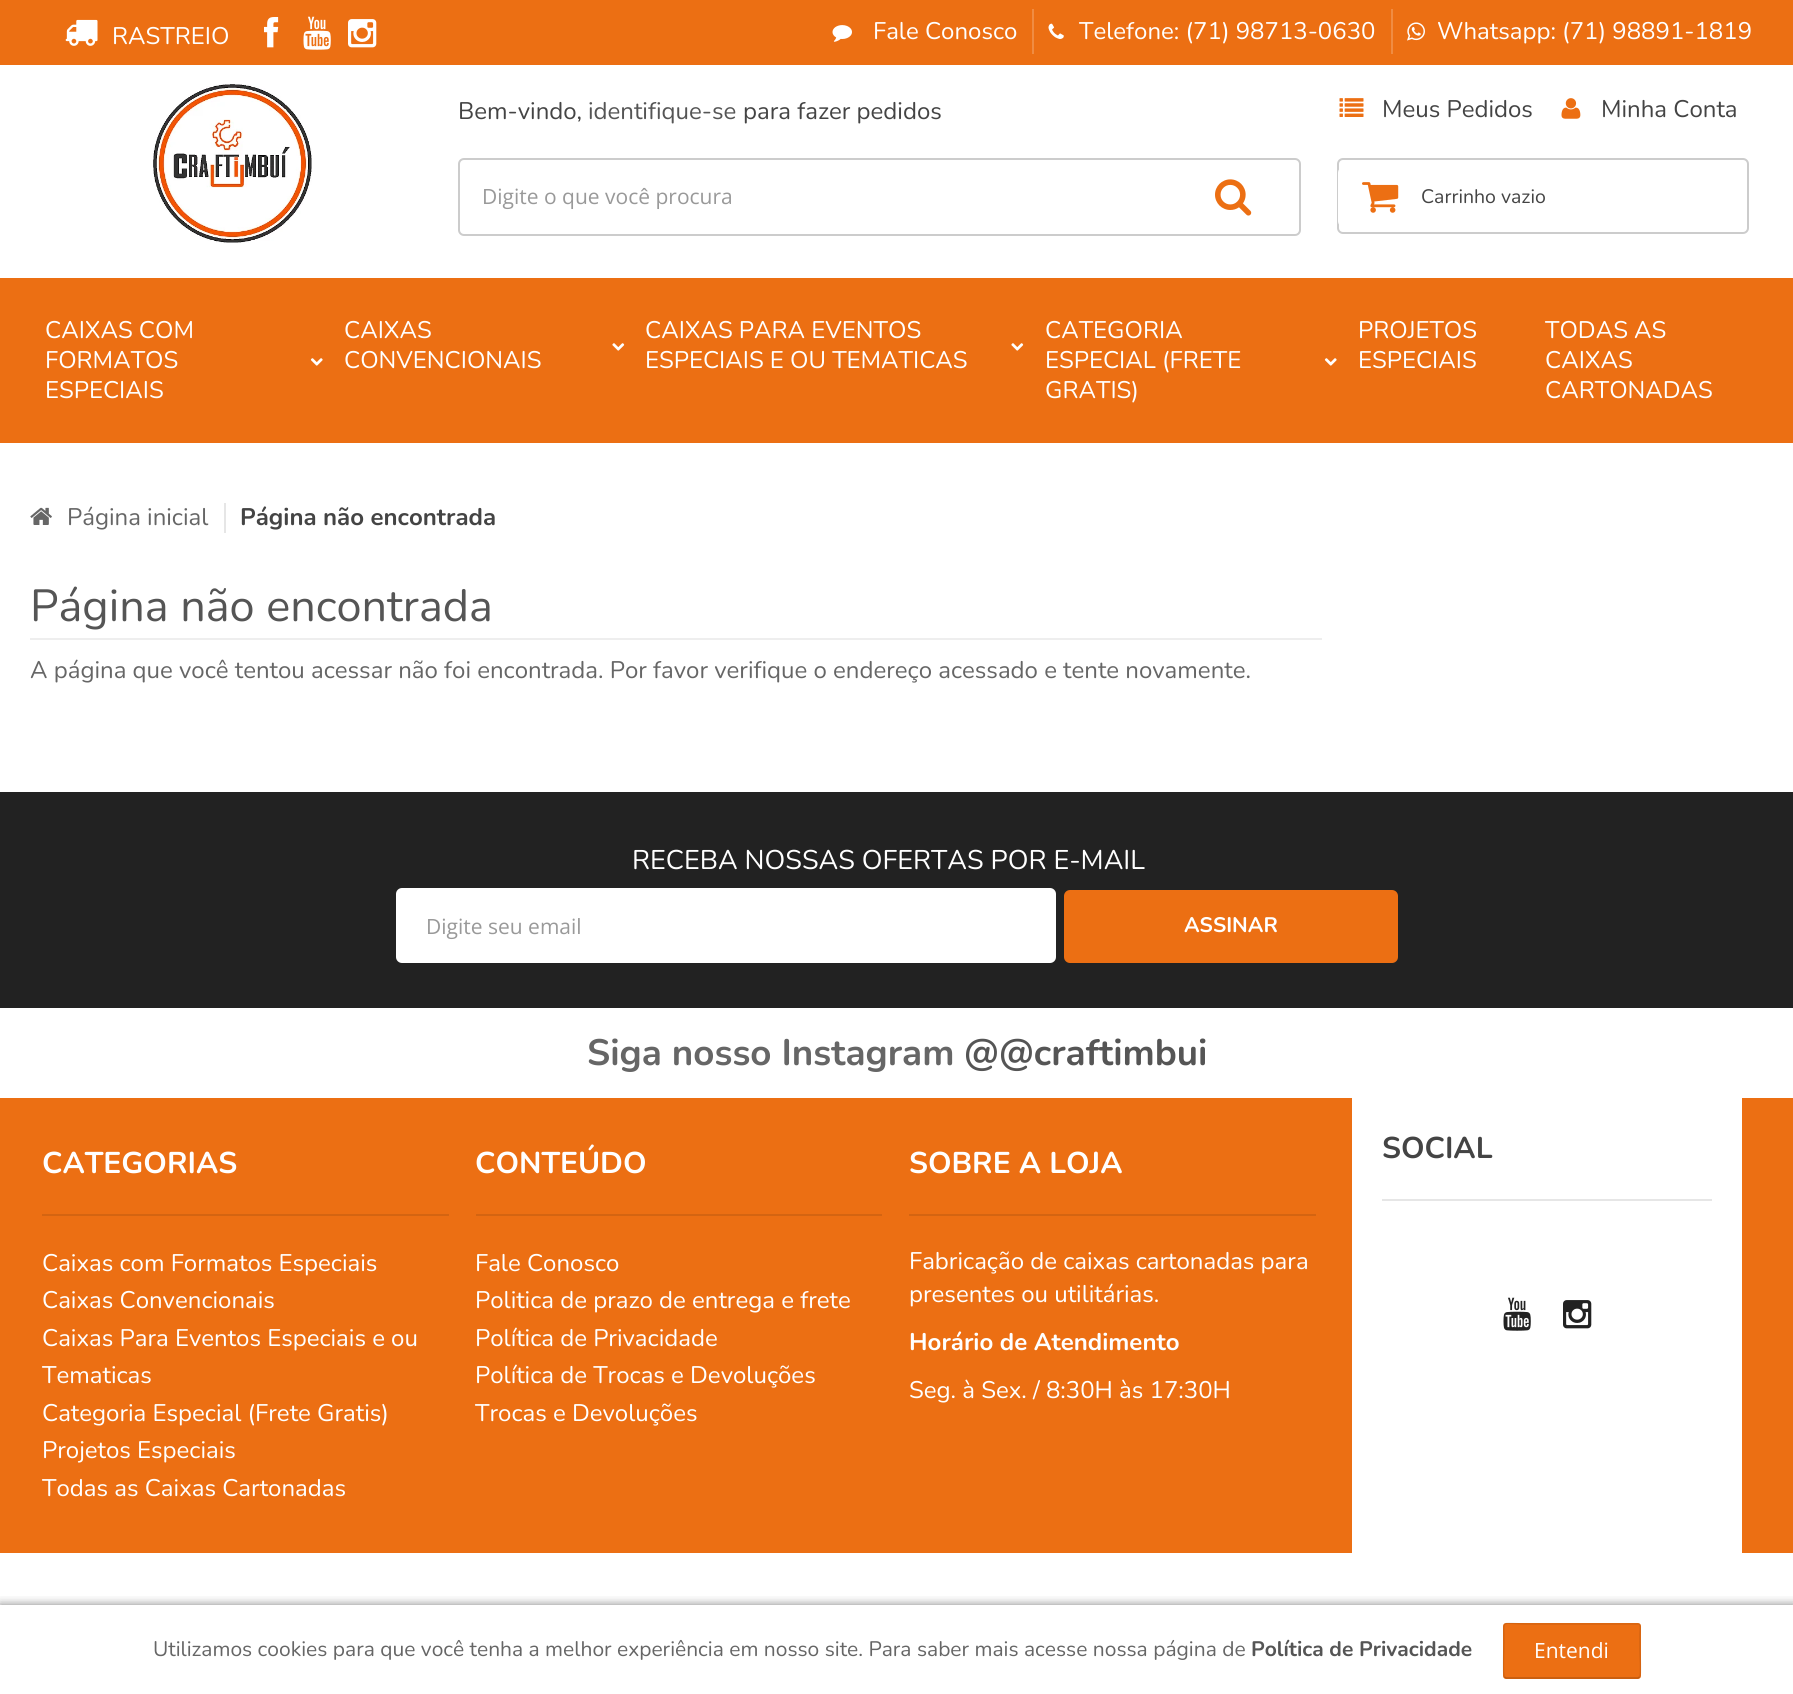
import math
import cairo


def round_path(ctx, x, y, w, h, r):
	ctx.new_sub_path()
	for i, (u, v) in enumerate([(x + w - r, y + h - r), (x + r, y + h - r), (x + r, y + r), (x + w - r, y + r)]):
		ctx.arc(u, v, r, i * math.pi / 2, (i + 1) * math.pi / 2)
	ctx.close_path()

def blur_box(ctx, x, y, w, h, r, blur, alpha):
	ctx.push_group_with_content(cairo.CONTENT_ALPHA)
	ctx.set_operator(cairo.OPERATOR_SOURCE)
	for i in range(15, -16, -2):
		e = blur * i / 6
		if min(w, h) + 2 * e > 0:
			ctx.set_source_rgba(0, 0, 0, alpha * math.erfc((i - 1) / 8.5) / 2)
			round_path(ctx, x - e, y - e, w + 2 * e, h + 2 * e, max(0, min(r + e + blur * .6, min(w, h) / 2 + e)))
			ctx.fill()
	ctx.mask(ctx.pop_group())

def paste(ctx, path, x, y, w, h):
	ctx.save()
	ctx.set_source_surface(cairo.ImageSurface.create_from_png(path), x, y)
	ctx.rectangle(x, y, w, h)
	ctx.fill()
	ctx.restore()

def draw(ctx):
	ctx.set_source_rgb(1, 1, 1)
	ctx.paint()
	ctx.set_source_rgb(0.925, 0.435, 0.075)
	ctx.rectangle(0, 0, 1793, 65)
	ctx.fill()
	paste(ctx, 'media/1.png', 65, 19, 33, 27)
	ctx.select_font_face('Nunito')
	ctx.set_font_size(24)
	ctx.set_source_rgb(1, 1, 1)
	ctx.move_to(112, 44)
	ctx.show_text('RASTREIO')
	paste(ctx, 'media/2.png', 264, 17, 15, 31)
	paste(ctx, 'media/3.png', 303, 16, 28, 34)
	paste(ctx, 'media/4.png', 348, 19, 29, 29)
	paste(ctx, 'media/5.png', 832, 25, 20, 17)
	ctx.move_to(873, 39)
	ctx.show_text('Fale Conosco')
	ctx.set_source_rgb(0.941, 0.549, 0.259)
	ctx.rectangle(1032, 9, 2, 45)
	ctx.fill()
	paste(ctx, 'media/6.png', 1048, 23, 16, 16)
	ctx.set_source_rgb(1, 1, 1)
	ctx.move_to(1079, 39)
	ctx.show_text('Telefone: (71) 98713-0630')
	ctx.set_source_rgb(0.941, 0.549, 0.259)
	ctx.rectangle(1391, 9, 2, 45)
	ctx.fill()
	paste(ctx, 'media/7.png', 1407, 22, 18, 19)
	ctx.set_source_rgb(1, 1, 1)
	ctx.move_to(1437, 39)
	ctx.show_text('Whatsapp: (71) 98891-1819')
	paste(ctx, 'media/8.png', 153, 84, 159, 159)
	ctx.set_source_rgb(0.267, 0.267, 0.267)
	ctx.move_to(458, 119)
	ctx.show_text('Bem-vindo,')
	ctx.set_source_rgb(0.333, 0.333, 0.333)
	ctx.move_to(588, 119)
	ctx.show_text('identifique-se')
	ctx.set_source_rgb(0.267, 0.267, 0.267)
	ctx.move_to(743, 119)
	ctx.show_text('para fazer pedidos')
	paste(ctx, 'media/9.png', 1339, 98, 25, 19)
	ctx.move_to(1382, 117)
	ctx.show_text('Meus Pedidos')
	paste(ctx, 'media/10.png', 1561, 98, 20, 21)
	ctx.move_to(1601, 117)
	ctx.show_text('Minha Conta')
	round_path(ctx, 459, 159, 841, 76, 5)
	ctx.set_source_rgb(0.8, 0.8, 0.8)
	ctx.stroke()
	ctx.select_font_face('Open Sans')
	ctx.set_font_size(21)
	ctx.set_source_rgb(0.6, 0.6, 0.6)
	ctx.move_to(482, 204)
	ctx.show_text('Digite o que você procura')
	paste(ctx, 'media/11.png', 1215, 179, 37, 37)
	round_path(ctx, 1338, 159, 410, 74, 5)
	ctx.set_source_rgb(0.8, 0.8, 0.8)
	ctx.stroke()
	ctx.set_source_rgb(1, 1, 1)
	ctx.new_path()
	ctx.move_to(1344, 167)
	ctx.line_to(1398, 167)
	ctx.line_to(1398, 227)
	ctx.line_to(1344, 227)
	ctx.curve_to(1340.5, 227, 1338, 224.5, 1338, 221)
	ctx.line_to(1338, 173)
	ctx.curve_to(1338, 169.5, 1340.5, 167, 1344, 167)
	ctx.close_path()
	ctx.fill()
	paste(ctx, 'media/12.png', 1362, 182, 37, 31)
	ctx.select_font_face('Nunito')
	ctx.set_font_size(19.5)
	ctx.set_source_rgb(0.267, 0.267, 0.267)
	ctx.move_to(1421, 203)
	ctx.show_text('Carrinho vazio')
	ctx.set_source_rgb(0.925, 0.435, 0.075)
	ctx.rectangle(0, 278, 1793, 165)
	ctx.fill()
	ctx.set_font_size(24)
	ctx.set_source_rgb(1, 1, 1)
	for x, y, s in [
		(45, 338, 'CAIXAS COM'),
		(45, 368, 'FORMATOS'),
		(45, 398, 'ESPECIAIS'),
	]:
		ctx.move_to(x, y)
		ctx.show_text(s)
	paste(ctx, 'media/13.png', 310, 358, 13, 8)
	ctx.move_to(344, 338)
	ctx.show_text('CAIXAS')
	ctx.move_to(344, 368)
	ctx.show_text('CONVENCIONAIS')
	paste(ctx, 'media/14.png', 612, 343, 13, 8)
	ctx.move_to(645, 338)
	ctx.show_text('CAIXAS PARA EVENTOS')
	ctx.move_to(645, 368)
	ctx.show_text('ESPECIAIS E OU TEMATICAS')
	paste(ctx, 'media/14.png', 1011, 343, 13, 8)
	for x, y, s in [
		(1045, 338, 'CATEGORIA'),
		(1045, 368, 'ESPECIAL (FRETE'),
		(1045, 398, 'GRATIS)'),
	]:
		ctx.move_to(x, y)
		ctx.show_text(s)
	paste(ctx, 'media/13.png', 1324, 358, 13, 8)
	for x, y, s in [
		(1358, 338, 'PROJETOS'),
		(1358, 368, 'ESPECIAIS'),
		(1545, 338, 'TODAS AS'),
		(1545, 368, 'CAIXAS'),
		(1545, 398, 'CARTONADAS'),
	]:
		ctx.move_to(x, y)
		ctx.show_text(s)
	paste(ctx, 'media/15.png', 30, 507, 22, 18)
	ctx.set_source_rgb(0.4, 0.4, 0.4)
	ctx.move_to(67, 525)
	ctx.show_text('Página inicial')
	ctx.set_source_rgb(0.902, 0.902, 0.902)
	ctx.rectangle(224, 503, 2, 30)
	ctx.fill()
	ctx.select_font_face('Nunito', cairo.FONT_SLANT_NORMAL, cairo.FONT_WEIGHT_BOLD)
	ctx.set_source_rgb(0.267, 0.267, 0.267)
	ctx.move_to(240, 525)
	ctx.show_text('Página não encontrada')
	ctx.set_source_rgb(0.933, 0.933, 0.933)
	ctx.rectangle(30, 638, 1292, 2)
	ctx.fill()
	ctx.select_font_face('Nunito')
	ctx.set_font_size(45)
	ctx.set_source_rgb(0.333, 0.333, 0.333)
	ctx.move_to(30, 621)
	ctx.show_text('Página não encontrada')
	ctx.set_font_size(24)
	ctx.set_source_rgb(0.4, 0.4, 0.4)
	ctx.move_to(30, 678)
	ctx.show_text('A página que você tentou acessar não foi encontrada. Por favor verifique o endereço acessado e tente novamente.')
	ctx.set_source_rgb(0.133, 0.133, 0.133)
	ctx.rectangle(0, 792, 1793, 216)
	ctx.fill()
	ctx.set_font_size(27)
	ctx.set_source_rgb(1, 1, 1)
	ctx.move_to(632, 869)
	ctx.show_text('RECEBA NOSSAS OFERTAS POR E-MAIL')
	round_path(ctx, 396, 888, 660, 75, 6)
	ctx.fill()
	ctx.select_font_face('Open Sans')
	ctx.set_font_size(21)
	ctx.set_source_rgb(0.6, 0.6, 0.6)
	ctx.move_to(426, 934)
	ctx.show_text('Digite seu email')
	ctx.set_source_rgb(0.925, 0.435, 0.075)
	round_path(ctx, 1064, 890, 334, 73, 6)
	ctx.fill()
	ctx.select_font_face('Nunito', cairo.FONT_SLANT_NORMAL, cairo.FONT_WEIGHT_BOLD)
	ctx.set_source_rgb(1, 1, 1)
	ctx.move_to(1184, 932)
	ctx.show_text('ASSINAR')
	ctx.set_font_size(36.75)
	ctx.set_source_rgb(0.4, 0.4, 0.4)
	ctx.move_to(587, 1065)
	ctx.show_text('Siga nosso Instagram')
	ctx.set_source_rgb(0.333, 0.333, 0.333)
	ctx.move_to(964, 1065)
	ctx.show_text('@@craftimbui')
	ctx.set_source_rgb(0.925, 0.435, 0.075)
	ctx.rectangle(0, 1098, 1793, 455)
	ctx.fill()
	ctx.set_source_rgb(0.831, 0.392, 0.067)
	ctx.rectangle(42, 1214, 407, 2)
	ctx.fill()
	ctx.set_font_size(30)
	ctx.set_source_rgb(1, 1, 1)
	ctx.move_to(42, 1173)
	ctx.show_text('CATEGORIAS')
	ctx.select_font_face('Nunito')
	ctx.set_font_size(24)
	for x, y, s in [
		(42, 1271, 'Caixas com Formatos Especiais'),
		(42, 1308, 'Caixas Convencionais'),
		(42, 1346, 'Caixas Para Eventos Especiais e ou'),
		(42, 1383, 'Tematicas'),
		(42, 1421, 'Categoria Especial (Frete Gratis)'),
		(42, 1458, 'Projetos Especiais'),
		(42, 1496, 'Todas as Caixas Cartonadas'),
	]:
		ctx.move_to(x, y)
		ctx.show_text(s)
	ctx.set_source_rgb(0.831, 0.392, 0.067)
	ctx.rectangle(476, 1214, 406, 2)
	ctx.fill()
	ctx.select_font_face('Nunito', cairo.FONT_SLANT_NORMAL, cairo.FONT_WEIGHT_BOLD)
	ctx.set_font_size(30)
	ctx.set_source_rgb(1, 1, 1)
	ctx.move_to(475, 1173)
	ctx.show_text('CONTEÚDO')
	ctx.select_font_face('Nunito')
	ctx.set_font_size(24)
	for x, y, s in [
		(475, 1271, 'Fale Conosco'),
		(475, 1308, 'Politica de prazo de entrega e frete'),
		(475, 1346, 'Política de Privacidade'),
		(475, 1383, 'Política de Trocas e Devoluções'),
		(475, 1421, 'Trocas e Devoluções'),
	]:
		ctx.move_to(x, y)
		ctx.show_text(s)
	ctx.set_source_rgb(0.831, 0.392, 0.067)
	ctx.rectangle(909, 1214, 407, 2)
	ctx.fill()
	ctx.select_font_face('Nunito', cairo.FONT_SLANT_NORMAL, cairo.FONT_WEIGHT_BOLD)
	ctx.set_font_size(30)
	ctx.set_source_rgb(1, 1, 1)
	ctx.move_to(909, 1173)
	ctx.show_text('SOBRE A LOJA')
	ctx.select_font_face('Nunito')
	ctx.set_font_size(24)
	ctx.move_to(909, 1269)
	ctx.show_text('Fabricação de caixas cartonadas para')
	ctx.move_to(909, 1302)
	ctx.show_text('presentes ou utilitárias.')
	ctx.select_font_face('Nunito', cairo.FONT_SLANT_NORMAL, cairo.FONT_WEIGHT_BOLD)
	ctx.move_to(909, 1350)
	ctx.show_text('Horário de Atendimento')
	ctx.select_font_face('Nunito')
	ctx.move_to(909, 1398)
	ctx.show_text('Seg. à Sex. / 8:30H às 17:30H')
	ctx.rectangle(1352, 1098, 390, 455)
	ctx.fill()
	ctx.set_source_rgb(0.902, 0.902, 0.902)
	ctx.rectangle(1382, 1199, 330, 2)
	ctx.fill()
	ctx.select_font_face('Nunito', cairo.FONT_SLANT_NORMAL, cairo.FONT_WEIGHT_BOLD)
	ctx.set_font_size(30)
	ctx.set_source_rgb(0.267, 0.267, 0.267)
	ctx.move_to(1382, 1158)
	ctx.show_text('SOCIAL')
	paste(ctx, 'media/16.png', 1503, 1297, 28, 34)
	paste(ctx, 'media/17.png', 1563, 1300, 29, 29)
	ctx.save()
	ctx.rectangle(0, 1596, 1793, 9)
	ctx.clip()
	ctx.set_source_rgb(0, 0, 0)
	blur_box(ctx, 0, 1605, 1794, 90, 0, 5, 0.5)
	ctx.restore()
	ctx.select_font_face('Nunito')
	ctx.set_font_size(21)
	ctx.set_source_rgb(0.4, 0.4, 0.4)
	ctx.move_to(153, 1656)
	ctx.show_text('Utilizamos cookies para que você tenha a melhor experiência em nosso site. Para saber mais acesse nossa página de')
	ctx.select_font_face('Nunito', cairo.FONT_SLANT_NORMAL, cairo.FONT_WEIGHT_BOLD)
	ctx.set_source_rgb(0.333, 0.333, 0.333)
	ctx.move_to(1251, 1656)
	ctx.show_text('Política de Privacidade')
	ctx.set_source_rgb(0.925, 0.435, 0.075)
	round_path(ctx, 1503, 1623, 138, 56, 3)
	ctx.fill()
	ctx.new_path()
	ctx.move_to(1639.5, 1677)
	ctx.line_to(1638, 1678)
	ctx.line_to(1506, 1678)
	ctx.line_to(1504.5, 1677)
	ctx.set_source_rgba(0, 0, 0, 0.2)
	ctx.set_line_width(1.5)
	ctx.stroke()
	ctx.new_path()
	ctx.move_to(1504.5, 1677)
	ctx.curve_to(1502.5, 1675.5, 1504, 1647, 1504, 1642.5)
	ctx.curve_to(1504, 1617.5, 1499.5, 1624, 1528, 1624)
	ctx.line_to(1638, 1624)
	ctx.curve_to(1641.5, 1624, 1640, 1630, 1640, 1634)
	ctx.line_to(1640, 1651)
	ctx.curve_to(1640, 1654.5, 1641.5, 1675.5, 1639.5, 1677)
	ctx.set_source_rgba(0, 0, 0, 0.1)
	ctx.stroke()
	ctx.select_font_face('Open Sans')
	ctx.set_source_rgb(1, 1, 1)
	ctx.move_to(1534, 1658)
	ctx.show_text('Entendi')


surface = cairo.ImageSurface(cairo.FORMAT_RGB24, 1793, 1694)
ctx = cairo.Context(surface)
options = cairo.FontOptions()
options.set_hint_metrics(cairo.HINT_METRICS_OFF)
options.set_hint_style(cairo.HINT_STYLE_NONE)
ctx.set_font_options(options)
ctx.set_miter_limit(4)
draw(ctx)
surface.write_to_png('image.png')
